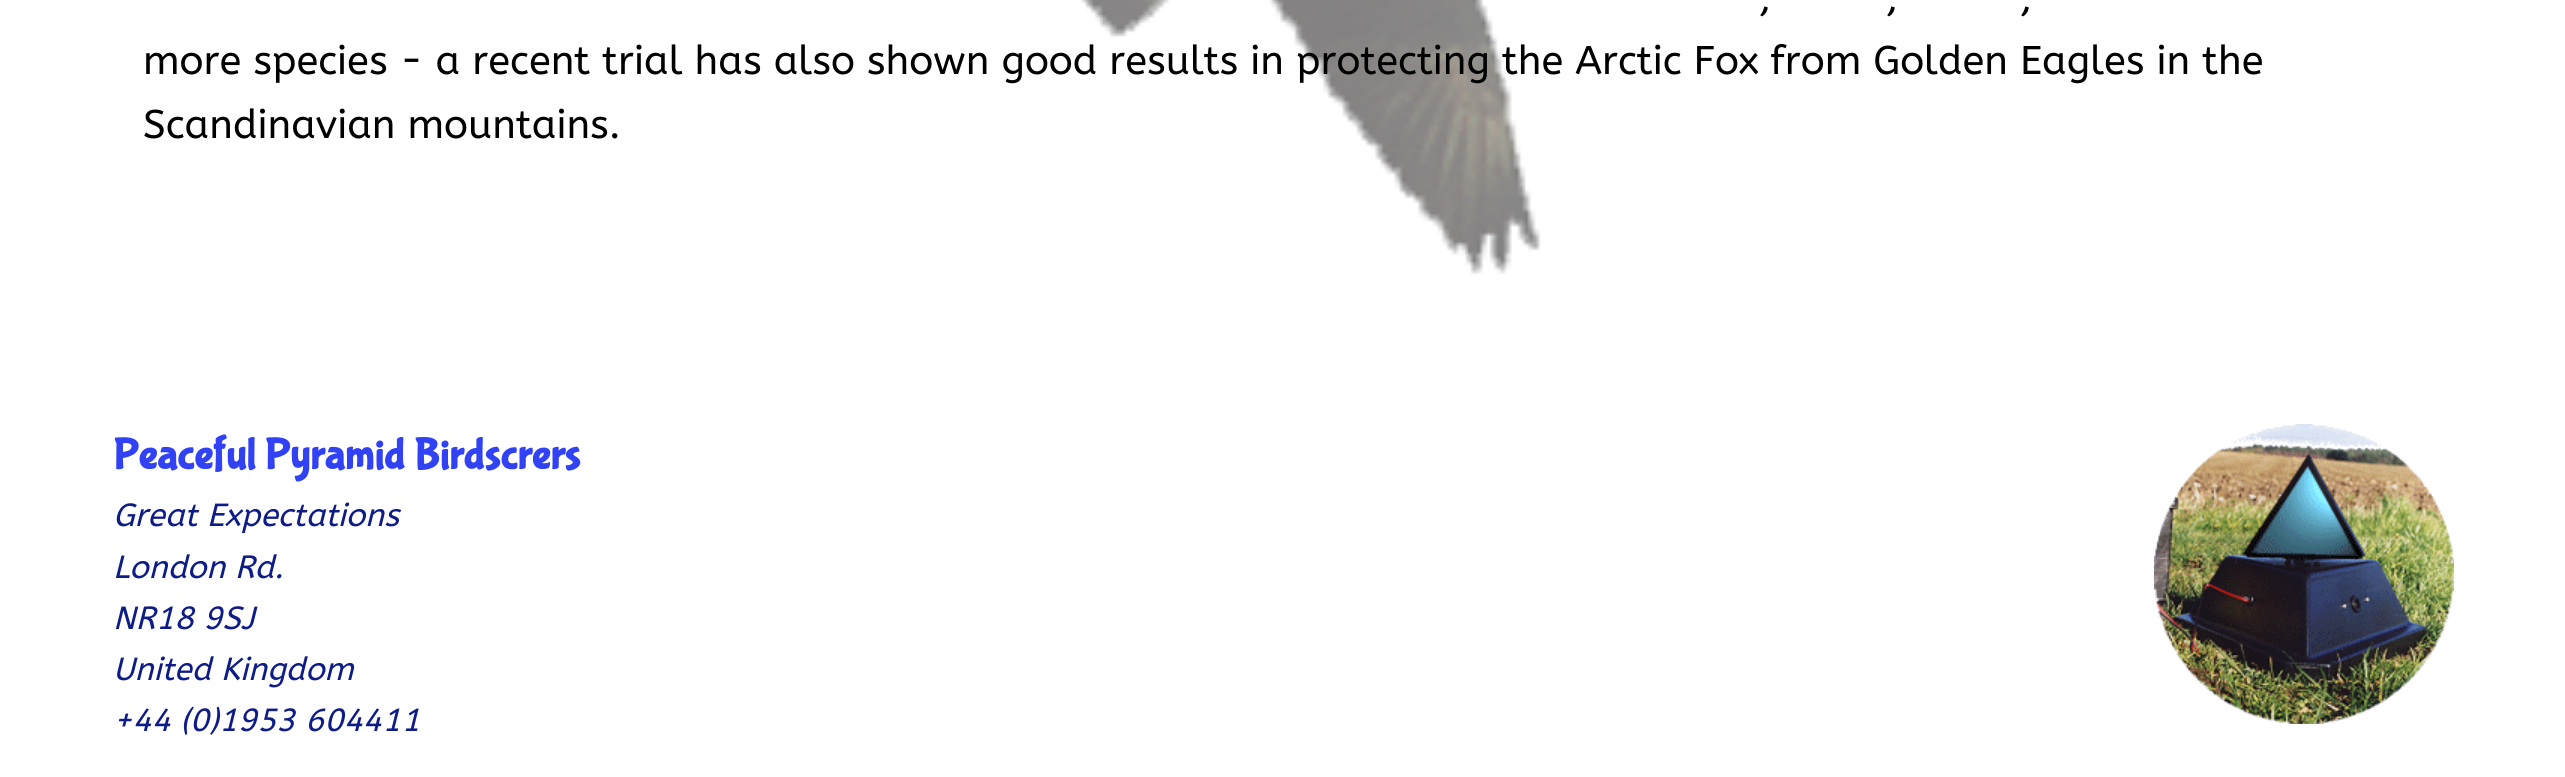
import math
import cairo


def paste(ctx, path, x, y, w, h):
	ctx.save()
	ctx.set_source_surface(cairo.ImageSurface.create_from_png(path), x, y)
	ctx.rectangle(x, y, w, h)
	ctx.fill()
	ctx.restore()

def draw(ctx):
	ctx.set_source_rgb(1, 1, 1)
	ctx.paint()
	paste(ctx, 'media/1.png', 1080, 0, 461, 275)
	ctx.select_font_face('ABeeZee')
	ctx.set_font_size(40)
	ctx.set_source_rgb(0, 0, 0)
	for x, y, s in [
		(1759, 10, ','),
		(1886, 10, ','),
		(2020, 10, ','),
		(143, 74, 'more species - a recent trial has also shown good results in protecting the Arctic Fox from Golden Eagles in the'),
		(143, 138, 'Scandinavian mountains.'),
	]:
		ctx.move_to(x, y)
		ctx.show_text(s)
	ctx.select_font_face('Bubblegum Sans', cairo.FONT_SLANT_NORMAL, cairo.FONT_WEIGHT_BOLD)
	ctx.set_font_size(44)
	ctx.set_source_rgb(0.188, 0.259, 0.957)
	ctx.move_to(113, 468)
	ctx.show_text('Peaceful Pyramid Birdscrers')
	paste(ctx, 'media/2.png', 2154, 424, 300, 300)
	ctx.select_font_face('ABeeZee', cairo.FONT_SLANT_ITALIC)
	ctx.set_font_size(32)
	ctx.set_source_rgb(0.055, 0.11, 0.529)
	for x, y, s in [
		(113, 526, 'Great Expectations'),
		(113, 578, 'London Rd.'),
		(113, 629, 'NR18 9SJ'),
		(113, 680, 'United Kingdom'),
		(113, 731, '+44 (0)1953 604411'),
	]:
		ctx.move_to(x, y)
		ctx.show_text(s)


surface = cairo.ImageSurface(cairo.FORMAT_RGB24, 2565, 777)
ctx = cairo.Context(surface)
options = cairo.FontOptions()
options.set_hint_metrics(cairo.HINT_METRICS_OFF)
options.set_hint_style(cairo.HINT_STYLE_NONE)
ctx.set_font_options(options)
ctx.set_miter_limit(4)
draw(ctx)
surface.write_to_png('image.png')
